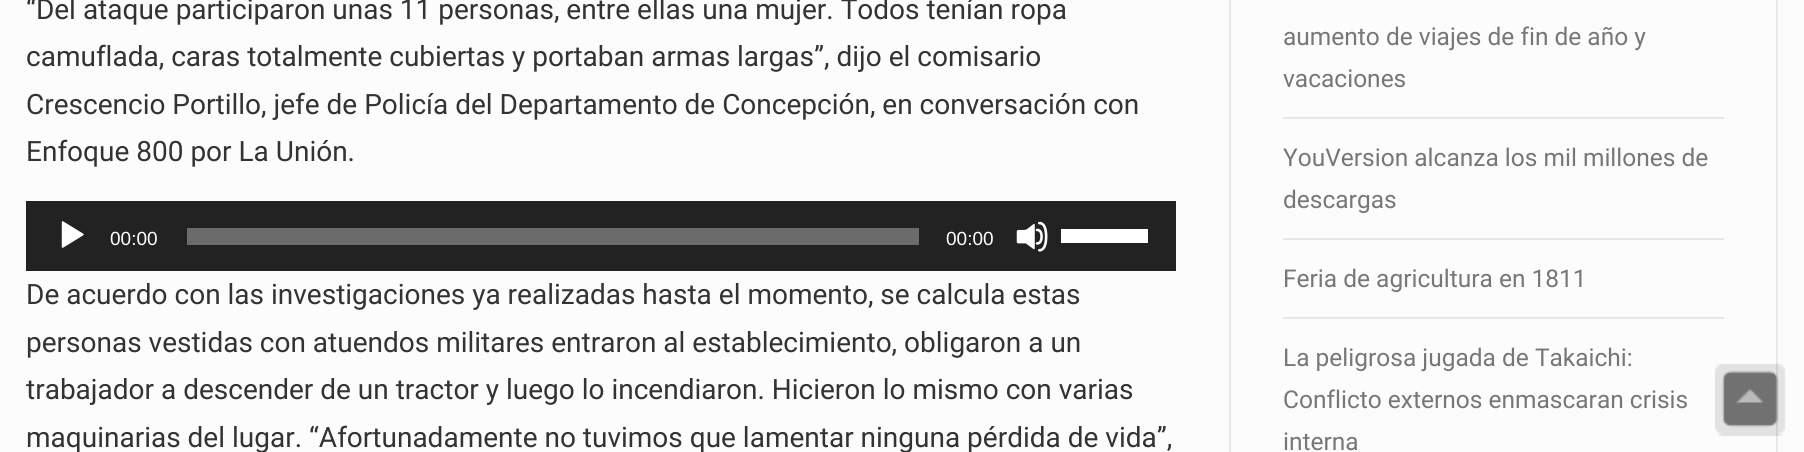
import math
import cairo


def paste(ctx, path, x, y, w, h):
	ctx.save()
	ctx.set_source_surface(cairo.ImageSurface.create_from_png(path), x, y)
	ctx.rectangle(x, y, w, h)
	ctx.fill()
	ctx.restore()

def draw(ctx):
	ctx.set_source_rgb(0.988, 0.988, 0.988)
	ctx.paint()
	ctx.select_font_face('Roboto')
	ctx.set_font_size(28)
	ctx.set_source_rgb(0.2, 0.2, 0.2)
	for x, y, s in [
		(26, 19, '“Del ataque participaron unas 11 personas, entre ellas una mujer. Todos tenían ropa'),
		(26, 66, 'camuflada, caras totalmente cubiertas y portaban armas largas”, dijo el comisario'),
		(26, 114, 'Crescencio Portillo, jefe de Policía del Departamento de Concepción, en conversación con'),
		(26, 161, 'Enfoque 800 por La Unión.'),
	]:
		ctx.move_to(x, y)
		ctx.show_text(s)
	ctx.set_source_rgb(0.133, 0.133, 0.133)
	ctx.rectangle(26, 201, 1150, 70)
	ctx.fill()
	paste(ctx, 'media/1.png', 61, 221, 23, 27)
	ctx.select_font_face('Liberation Sans')
	ctx.set_font_size(19)
	ctx.set_source_rgb(1, 1, 1)
	ctx.move_to(110, 245)
	ctx.show_text('00:00')
	ctx.set_source_rgb(0.42, 0.42, 0.42)
	ctx.rectangle(187, 228, 732, 17)
	ctx.fill()
	ctx.set_source_rgb(1, 1, 1)
	ctx.move_to(946, 245)
	ctx.show_text('00:00')
	paste(ctx, 'media/2.png', 1016, 221, 32, 31)
	ctx.rectangle(1061, 229, 87, 14)
	ctx.fill()
	ctx.select_font_face('Roboto')
	ctx.set_font_size(28)
	ctx.set_source_rgb(0.2, 0.2, 0.2)
	for x, y, s in [
		(26, 304, 'De acuerdo con las investigaciones ya realizadas hasta el momento, se calcula estas'),
		(26, 352, 'personas vestidas con atuendos militares entraron al establecimiento, obligaron a un'),
		(26, 399, 'trabajador a descender de un tractor y luego lo incendiaron. Hicieron lo mismo con varias'),
		(26, 447, 'maquinarias del lugar. “Afortunadamente no tuvimos que lamentar ninguna pérdida de vida”,'),
	]:
		ctx.move_to(x, y)
		ctx.show_text(s)
	ctx.rectangle(1230, -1, 547, 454)
	ctx.set_source_rgb(0.91, 0.91, 0.91)
	ctx.stroke()
	ctx.set_font_size(24.5)
	ctx.set_source_rgb(0.467, 0.467, 0.467)
	ctx.move_to(1283, 45)
	ctx.show_text('aumento de viajes de fin de año y')
	ctx.move_to(1283, 87)
	ctx.show_text('vacaciones')
	ctx.set_source_rgb(0.902, 0.902, 0.902)
	ctx.rectangle(1283, 117, 441, 2)
	ctx.fill()
	ctx.set_source_rgb(0.467, 0.467, 0.467)
	ctx.move_to(1283, 166)
	ctx.show_text('YouVersion alcanza los mil millones de')
	ctx.move_to(1283, 208)
	ctx.show_text('descargas')
	ctx.set_source_rgb(0.902, 0.902, 0.902)
	ctx.rectangle(1283, 238, 441, 2)
	ctx.fill()
	ctx.set_source_rgb(0.467, 0.467, 0.467)
	ctx.move_to(1283, 287)
	ctx.show_text('Feria de agricultura en 1811')
	ctx.set_source_rgb(0.902, 0.902, 0.902)
	ctx.rectangle(1283, 317, 441, 2)
	ctx.fill()
	ctx.set_source_rgb(0.467, 0.467, 0.467)
	for x, y, s in [
		(1283, 366, 'La peligrosa jugada de Takaichi:'),
		(1283, 408, 'Conflicto externos enmascaran crisis'),
		(1283, 450, 'interna'),
	]:
		ctx.move_to(x, y)
		ctx.show_text(s)
	paste(ctx, 'media/3.png', 1715, 364, 71, 72)


surface = cairo.ImageSurface(cairo.FORMAT_RGB24, 1804, 452)
ctx = cairo.Context(surface)
options = cairo.FontOptions()
options.set_hint_metrics(cairo.HINT_METRICS_OFF)
options.set_hint_style(cairo.HINT_STYLE_NONE)
ctx.set_font_options(options)
ctx.set_miter_limit(4)
draw(ctx)
surface.write_to_png('image.png')
